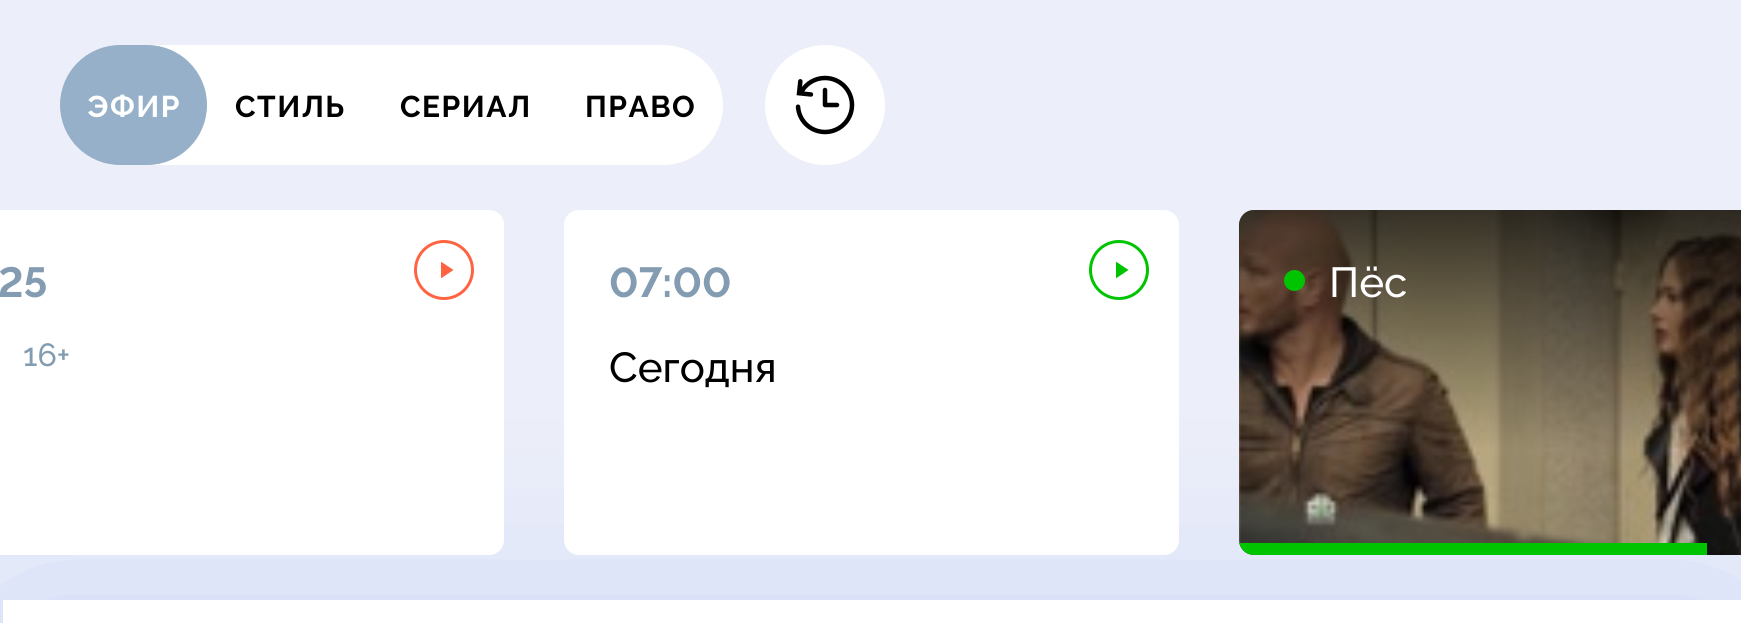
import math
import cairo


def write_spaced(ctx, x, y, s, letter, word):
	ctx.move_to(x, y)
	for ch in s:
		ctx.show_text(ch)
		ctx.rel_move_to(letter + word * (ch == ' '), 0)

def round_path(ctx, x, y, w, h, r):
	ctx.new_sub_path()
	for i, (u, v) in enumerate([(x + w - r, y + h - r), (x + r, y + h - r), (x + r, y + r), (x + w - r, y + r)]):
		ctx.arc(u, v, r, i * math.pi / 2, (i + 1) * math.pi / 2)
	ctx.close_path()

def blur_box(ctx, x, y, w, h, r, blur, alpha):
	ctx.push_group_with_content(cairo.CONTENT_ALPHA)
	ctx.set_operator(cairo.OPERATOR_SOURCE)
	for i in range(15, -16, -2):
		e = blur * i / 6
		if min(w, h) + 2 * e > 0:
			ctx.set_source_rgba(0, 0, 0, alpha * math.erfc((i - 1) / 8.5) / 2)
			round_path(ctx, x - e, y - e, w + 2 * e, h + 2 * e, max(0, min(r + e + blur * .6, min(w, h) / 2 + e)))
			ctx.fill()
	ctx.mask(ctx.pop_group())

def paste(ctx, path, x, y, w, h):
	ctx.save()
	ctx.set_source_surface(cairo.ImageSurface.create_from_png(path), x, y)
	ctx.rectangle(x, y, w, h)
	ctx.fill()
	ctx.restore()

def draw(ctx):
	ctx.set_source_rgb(0.925, 0.937, 0.973)
	ctx.paint()
	ctx.set_source_rgb(1, 1, 1)
	round_path(ctx, 60, 45, 663, 120, 60)
	ctx.fill()
	ctx.set_source_rgb(0.584, 0.69, 0.784)
	round_path(ctx, 60, 45, 147, 120, 60)
	ctx.fill()
	ctx.select_font_face('Raleway', cairo.FONT_SLANT_NORMAL, cairo.FONT_WEIGHT_BOLD)
	ctx.set_font_size(30)
	ctx.set_source_rgb(1, 1, 1)
	write_spaced(ctx, 87, 117, 'ЭФИР', 1.5, 0)
	ctx.set_source_rgb(0, 0, 0)
	for x, y, s in [
		(235, 117, 'СТИЛЬ'),
		(400, 117, 'СЕРИАЛ'),
		(585, 117, 'ПРАВО'),
	]:
		write_spaced(ctx, x, y, s, 1.5, 0)
	ctx.set_source_rgb(1, 1, 1)
	ctx.new_path()
	ctx.arc(825, 105, 60, 0, 2 * math.pi)
	ctx.fill()
	paste(ctx, 'media/1.png', 795, 75, 60, 60)
	ctx.set_source_rgb(0, 0.22, 1)
	blur_box(ctx, 3, 612, 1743, 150, 30, 105, 0.15)
	ctx.set_source_rgb(1, 1, 1)
	ctx.new_path()
	ctx.move_to(0, 210)
	ctx.line_to(489, 210)
	ctx.curve_to(497.5, 210, 504, 216.5, 504, 225)
	ctx.line_to(504, 540)
	ctx.curve_to(504, 548.5, 497.5, 555, 489, 555)
	ctx.line_to(0, 555)
	ctx.close_path()
	ctx.fill()
	ctx.select_font_face('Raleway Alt', cairo.FONT_SLANT_NORMAL, cairo.FONT_WEIGHT_BOLD)
	ctx.set_font_size(42)
	ctx.set_source_rgb(0.514, 0.612, 0.694)
	ctx.move_to(-2, 297)
	ctx.show_text('25')
	ctx.new_path()
	ctx.arc(444, 270, 28.5, 0, 2 * math.pi)
	ctx.set_source_rgb(1, 0.392, 0.259)
	ctx.set_line_width(3)
	ctx.stroke()
	ctx.save()
	ctx.rectangle(441, 261, 14, 18)
	ctx.clip()
	ctx.new_path()
	ctx.move_to(440, 279)
	ctx.line_to(440, 261)
	ctx.line_to(453.5, 270)
	ctx.close_path()
	ctx.fill()
	ctx.restore()
	ctx.select_font_face('Raleway Medium')
	ctx.set_font_size(32)
	ctx.set_source_rgb(0.514, 0.612, 0.694)
	ctx.move_to(23, 366)
	ctx.show_text('16+')
	ctx.set_source_rgb(1, 1, 1)
	round_path(ctx, 564, 210, 615, 345, 15)
	ctx.fill()
	ctx.select_font_face('Raleway Alt', cairo.FONT_SLANT_NORMAL, cairo.FONT_WEIGHT_BOLD)
	ctx.set_font_size(42)
	ctx.set_source_rgb(0.514, 0.612, 0.694)
	ctx.move_to(609, 297)
	ctx.show_text('07:00')
	ctx.new_path()
	ctx.arc(1119, 270, 28.5, 0, 2 * math.pi)
	ctx.set_source_rgb(0, 0.769, 0)
	ctx.stroke()
	ctx.save()
	ctx.rectangle(1116, 261, 14, 18)
	ctx.clip()
	ctx.new_path()
	ctx.move_to(1115, 279)
	ctx.line_to(1115, 261)
	ctx.line_to(1128.5, 270)
	ctx.close_path()
	ctx.fill()
	ctx.restore()
	ctx.select_font_face('Raleway Medium')
	ctx.set_source_rgb(0, 0, 0)
	ctx.move_to(609, 382)
	ctx.show_text('Сегодня')
	paste(ctx, 'media/2.png', 1239, 210, 502, 345)
	gradient = cairo.LinearGradient(1547, 450, 1547, 210)
	gradient.add_color_stop_rgba(0, 0, 0, 0, 0)
	gradient.add_color_stop_rgba(1, 0, 0, 0, 0.7)
	ctx.set_source(gradient)
	ctx.new_path()
	ctx.move_to(1254, 210)
	ctx.line_to(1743, 210)
	ctx.line_to(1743, 450)
	ctx.line_to(1239, 450)
	ctx.line_to(1239, 225)
	ctx.curve_to(1239, 216.5, 1245.5, 210, 1254, 210)
	ctx.close_path()
	ctx.fill()
	ctx.set_source_rgb(0, 0.769, 0)
	ctx.arc(1294.5, 280.5, 10.5, 0, 2 * math.pi)
	ctx.fill()
	ctx.set_source_rgb(1, 1, 1)
	ctx.move_to(1329, 297)
	ctx.show_text('Пёс')
	ctx.save()
	round_path(ctx, 1239, 210, 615, 345, 15)
	ctx.clip()
	ctx.set_source_rgb(0, 0.769, 0)
	ctx.rectangle(1239, 543, 468, 12)
	ctx.fill()
	ctx.restore()
	ctx.rectangle(3, 600, 1738, 23)
	ctx.fill()


surface = cairo.ImageSurface(cairo.FORMAT_RGB24, 1741, 623)
ctx = cairo.Context(surface)
options = cairo.FontOptions()
options.set_hint_metrics(cairo.HINT_METRICS_OFF)
options.set_hint_style(cairo.HINT_STYLE_NONE)
ctx.set_font_options(options)
ctx.set_miter_limit(4)
draw(ctx)
surface.write_to_png('image.png')
